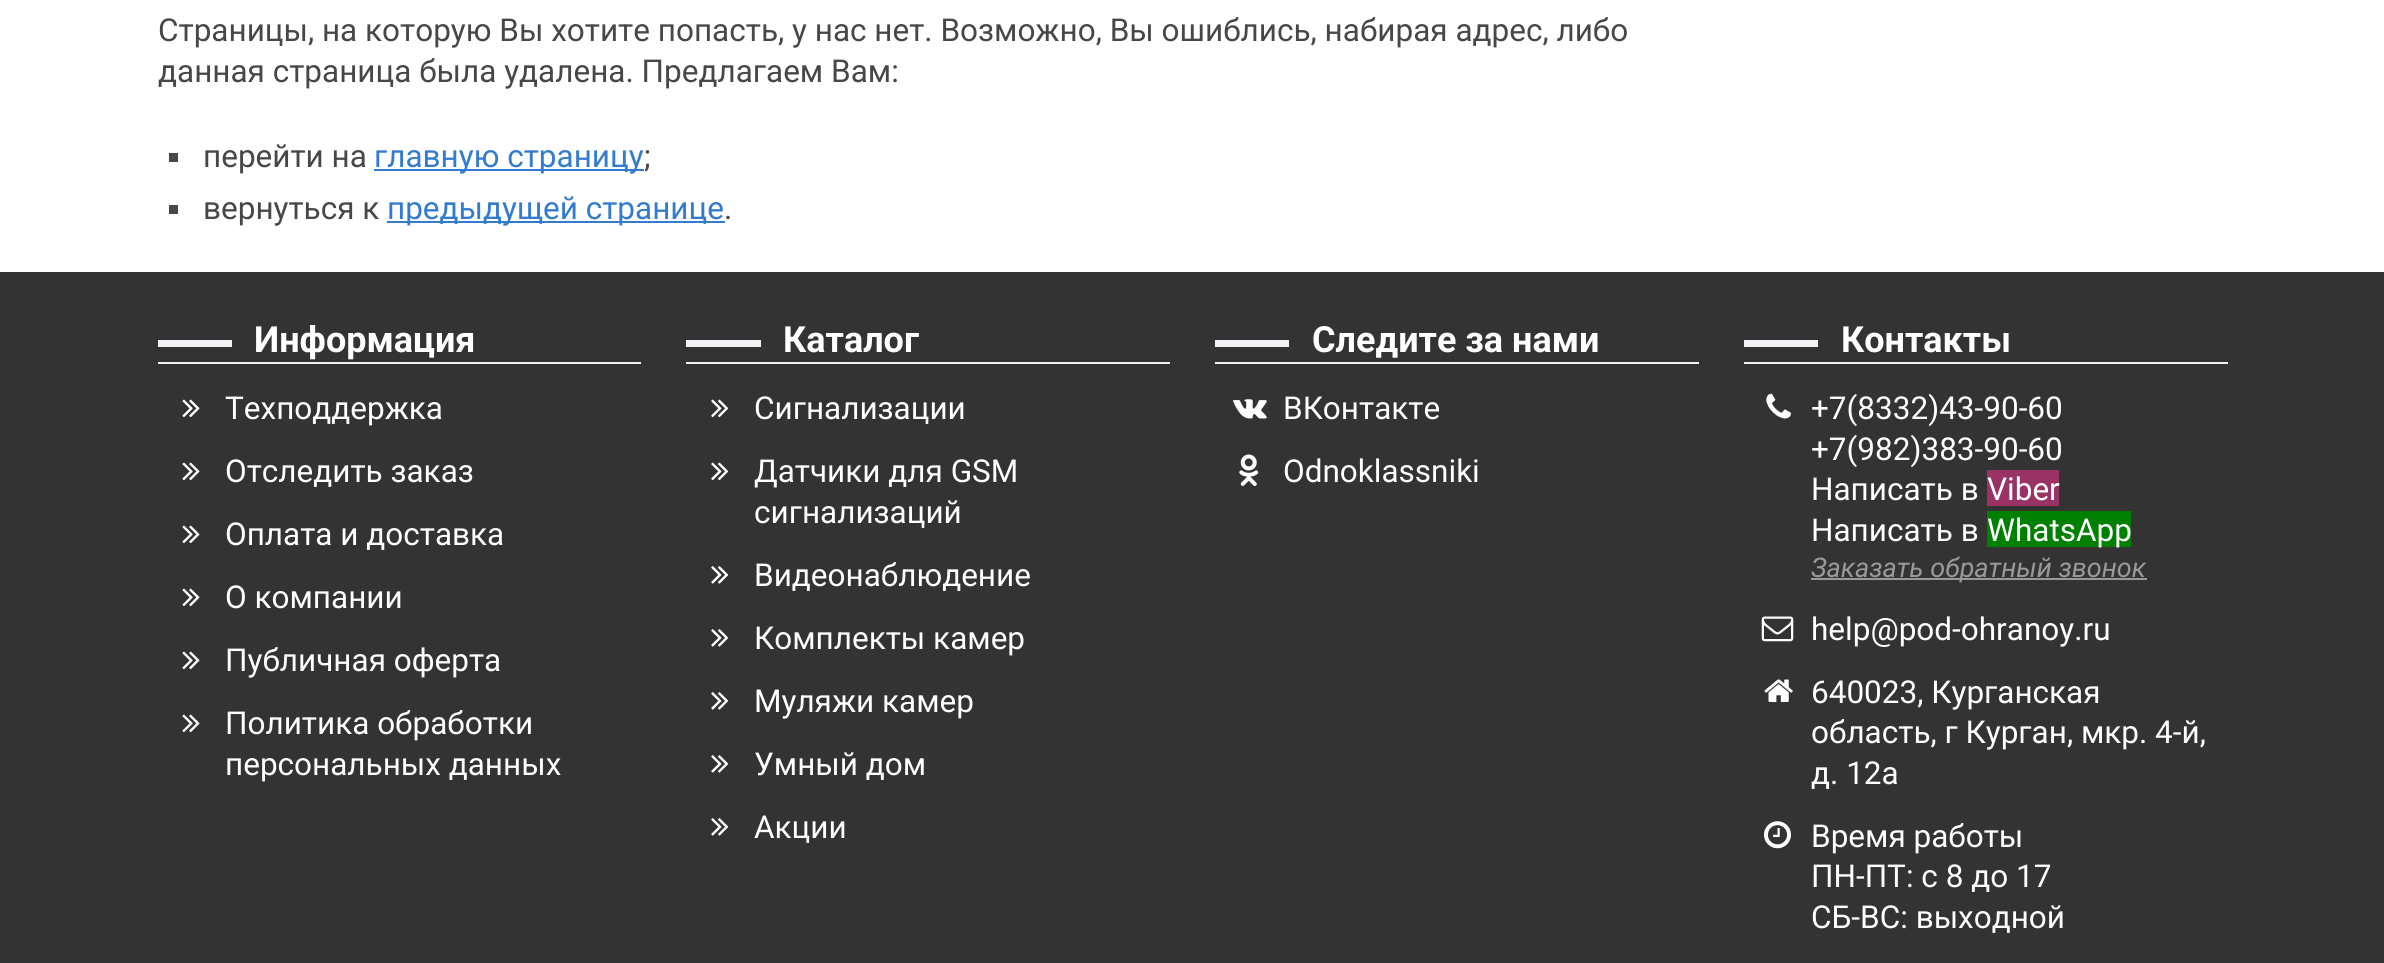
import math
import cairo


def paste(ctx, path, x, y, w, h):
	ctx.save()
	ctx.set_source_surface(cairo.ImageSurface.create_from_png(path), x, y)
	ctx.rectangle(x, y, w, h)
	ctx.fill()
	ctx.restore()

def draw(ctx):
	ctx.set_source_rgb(1, 1, 1)
	ctx.paint()
	ctx.select_font_face('Roboto')
	ctx.set_font_size(31.5)
	ctx.set_source_rgb(0.278, 0.278, 0.278)
	ctx.move_to(158, 41)
	ctx.show_text('Страницы, на которую Вы хотите попасть, у нас нет. Возможно, Вы ошиблись, набирая адрес, либо')
	ctx.move_to(158, 82)
	ctx.show_text('данная страница была удалена. Предлагаем Вам:')
	ctx.rectangle(169, 153, 9, 9)
	ctx.fill()
	ctx.move_to(203, 167)
	ctx.show_text('перейти на')
	ctx.set_source_rgb(0.196, 0.482, 0.812)
	ctx.rectangle(374, 169, 270, 2)
	ctx.fill()
	ctx.move_to(374, 167)
	ctx.show_text('главную страницу')
	ctx.set_source_rgb(0.278, 0.278, 0.278)
	ctx.move_to(644, 167)
	ctx.show_text(';')
	ctx.rectangle(169, 205, 9, 9)
	ctx.fill()
	ctx.move_to(203, 219)
	ctx.show_text('вернуться к')
	ctx.set_source_rgb(0.196, 0.482, 0.812)
	ctx.rectangle(387, 221, 338, 2)
	ctx.fill()
	ctx.move_to(387, 219)
	ctx.show_text('предыдущей странице')
	ctx.set_source_rgb(0.278, 0.278, 0.278)
	ctx.move_to(724, 219)
	ctx.show_text('.')
	ctx.set_source_rgb(0.2, 0.2, 0.2)
	ctx.rectangle(0, 272, 2384, 691)
	ctx.fill()
	ctx.set_source_rgb(0.941, 0.949, 0.961)
	ctx.rectangle(158, 362, 483, 2)
	ctx.rectangle(158, 340, 74, 7)
	ctx.fill()
	ctx.select_font_face('Roboto', cairo.FONT_SLANT_NORMAL, cairo.FONT_WEIGHT_BOLD)
	ctx.set_font_size(36)
	ctx.set_source_rgb(1, 1, 1)
	ctx.move_to(254, 352)
	ctx.show_text('Информация')
	paste(ctx, 'media/1.png', 182, 399, 18, 19)
	ctx.select_font_face('Roboto')
	ctx.set_font_size(31.5)
	ctx.move_to(225, 419)
	ctx.show_text('Техподдержка')
	paste(ctx, 'media/1.png', 182, 462, 18, 19)
	ctx.move_to(225, 482)
	ctx.show_text('Отследить заказ')
	paste(ctx, 'media/1.png', 182, 525, 18, 19)
	ctx.move_to(225, 545)
	ctx.show_text('Оплата и доставка')
	paste(ctx, 'media/1.png', 182, 588, 18, 19)
	ctx.move_to(225, 608)
	ctx.show_text('О компании')
	paste(ctx, 'media/1.png', 182, 651, 18, 19)
	ctx.move_to(225, 671)
	ctx.show_text('Публичная оферта')
	paste(ctx, 'media/1.png', 182, 714, 18, 19)
	ctx.move_to(225, 734)
	ctx.show_text('Политика обработки')
	ctx.move_to(225, 775)
	ctx.show_text('персональных данных')
	ctx.set_source_rgb(0.941, 0.949, 0.961)
	ctx.rectangle(686, 362, 484, 2)
	ctx.fill()
	ctx.rectangle(686, 340, 75, 7)
	ctx.fill()
	ctx.select_font_face('Roboto', cairo.FONT_SLANT_NORMAL, cairo.FONT_WEIGHT_BOLD)
	ctx.set_font_size(36)
	ctx.set_source_rgb(1, 1, 1)
	ctx.move_to(783, 352)
	ctx.show_text('Каталог')
	paste(ctx, 'media/2.png', 711, 399, 18, 19)
	ctx.select_font_face('Roboto')
	ctx.set_font_size(31.5)
	ctx.move_to(754, 419)
	ctx.show_text('Сигнализации')
	paste(ctx, 'media/2.png', 711, 462, 18, 19)
	ctx.move_to(754, 482)
	ctx.show_text('Датчики для GSM')
	ctx.move_to(754, 523)
	ctx.show_text('сигнализаций')
	paste(ctx, 'media/3.png', 711, 566, 18, 18)
	ctx.move_to(754, 586)
	ctx.show_text('Видеонаблюдение')
	paste(ctx, 'media/3.png', 711, 629, 18, 18)
	ctx.move_to(754, 649)
	ctx.show_text('Комплекты камер')
	paste(ctx, 'media/3.png', 711, 692, 18, 18)
	ctx.move_to(754, 712)
	ctx.show_text('Муляжи камер')
	paste(ctx, 'media/3.png', 711, 755, 18, 18)
	ctx.move_to(754, 775)
	ctx.show_text('Умный дом')
	paste(ctx, 'media/3.png', 711, 818, 18, 18)
	ctx.move_to(754, 838)
	ctx.show_text('Акции')
	ctx.set_source_rgb(0.941, 0.949, 0.961)
	ctx.rectangle(1215, 362, 484, 2)
	ctx.fill()
	ctx.rectangle(1215, 340, 74, 7)
	ctx.fill()
	ctx.select_font_face('Roboto', cairo.FONT_SLANT_NORMAL, cairo.FONT_WEIGHT_BOLD)
	ctx.set_font_size(36)
	ctx.set_source_rgb(1, 1, 1)
	ctx.move_to(1312, 352)
	ctx.show_text('Следите за нами')
	paste(ctx, 'media/4.png', 1233, 399, 34, 20)
	ctx.select_font_face('Roboto')
	ctx.set_font_size(31.5)
	ctx.move_to(1283, 419)
	ctx.show_text('ВКонтакте')
	paste(ctx, 'media/5.png', 1239, 454, 20, 32)
	ctx.move_to(1283, 482)
	ctx.show_text('Odnoklassniki')
	ctx.set_source_rgb(0.941, 0.949, 0.961)
	ctx.rectangle(1744, 362, 484, 2)
	ctx.fill()
	ctx.rectangle(1744, 340, 74, 7)
	ctx.fill()
	ctx.select_font_face('Roboto', cairo.FONT_SLANT_NORMAL, cairo.FONT_WEIGHT_BOLD)
	ctx.set_font_size(36)
	ctx.set_source_rgb(1, 1, 1)
	ctx.move_to(1841, 352)
	ctx.show_text('Контакты')
	paste(ctx, 'media/6.png', 1766, 393, 25, 26)
	ctx.select_font_face('Roboto')
	ctx.set_font_size(31.5)
	for x, y, s in [
		(1811, 419, '+7(8332)43-90-60'),
		(1811, 460, '+7(982)383-90-60'),
		(1811, 500, 'Написать в'),
	]:
		ctx.move_to(x, y)
		ctx.show_text(s)
	ctx.set_source_rgb(0.6, 0.2, 0.4)
	ctx.rectangle(1987, 470, 72, 36)
	ctx.fill()
	ctx.set_source_rgb(1, 1, 1)
	ctx.move_to(1987, 500)
	ctx.show_text('Viber')
	ctx.move_to(1811, 541)
	ctx.show_text('Написать в')
	ctx.set_source_rgb(0, 0.502, 0)
	ctx.rectangle(1987, 511, 144, 36)
	ctx.fill()
	ctx.set_source_rgb(1, 1, 1)
	ctx.move_to(1987, 541)
	ctx.show_text('WhatsApp')
	ctx.set_source_rgb(0.6, 0.6, 0.6)
	ctx.rectangle(1811, 578, 336, 2)
	ctx.fill()
	ctx.select_font_face('Roboto', cairo.FONT_SLANT_ITALIC)
	ctx.set_font_size(27)
	ctx.move_to(1811, 577)
	ctx.show_text('Заказать обратный звонок')
	paste(ctx, 'media/7.png', 1761, 616, 33, 26)
	ctx.select_font_face('Roboto')
	ctx.set_font_size(31.5)
	ctx.set_source_rgb(1, 1, 1)
	ctx.move_to(1811, 640)
	ctx.show_text('help@pod-ohranoy.ru')
	paste(ctx, 'media/8.png', 1764, 679, 29, 23)
	for x, y, s in [
		(1811, 703, '640023, Курганская'),
		(1811, 743, 'область, г Курган, мкр. 4-й,'),
		(1811, 784, 'д. 12а'),
	]:
		ctx.move_to(x, y)
		ctx.show_text(s)
	paste(ctx, 'media/9.png', 1764, 821, 27, 28)
	for x, y, s in [
		(1811, 847, 'Время работы'),
		(1811, 887, 'ПН-ПТ: с 8 до 17'),
		(1811, 928, 'СБ-ВС: выходной'),
	]:
		ctx.move_to(x, y)
		ctx.show_text(s)


surface = cairo.ImageSurface(cairo.FORMAT_RGB24, 2384, 963)
ctx = cairo.Context(surface)
options = cairo.FontOptions()
options.set_hint_metrics(cairo.HINT_METRICS_OFF)
options.set_hint_style(cairo.HINT_STYLE_NONE)
ctx.set_font_options(options)
ctx.set_miter_limit(4)
draw(ctx)
surface.write_to_png('image.png')
